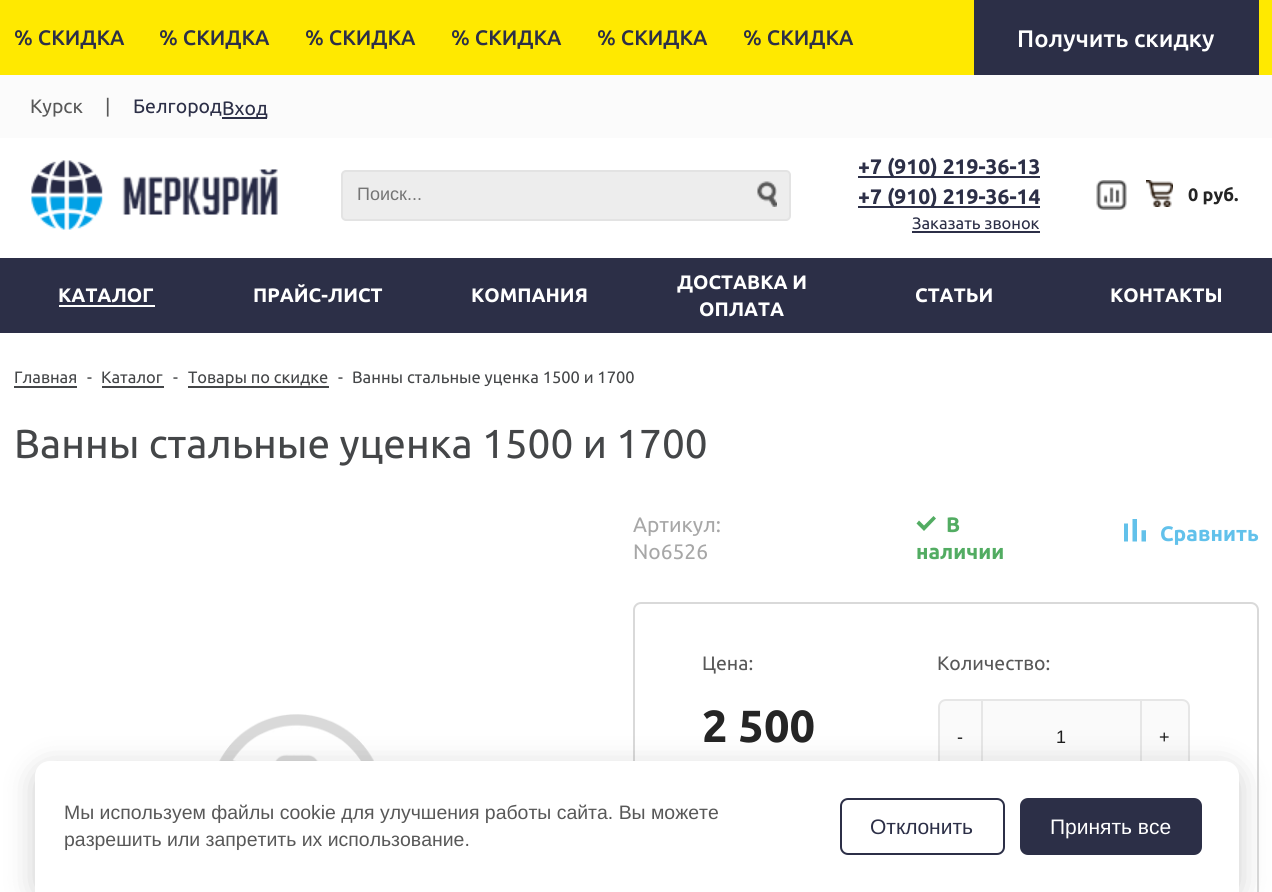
import math
import cairo


def round_path(ctx, x, y, w, h, r):
	ctx.new_sub_path()
	for i, (u, v) in enumerate([(x + w - r, y + h - r), (x + r, y + h - r), (x + r, y + r), (x + w - r, y + r)]):
		ctx.arc(u, v, r, i * math.pi / 2, (i + 1) * math.pi / 2)
	ctx.close_path()

def blur_box(ctx, x, y, w, h, r, blur, alpha):
	ctx.push_group_with_content(cairo.CONTENT_ALPHA)
	ctx.set_operator(cairo.OPERATOR_SOURCE)
	for i in range(15, -16, -2):
		e = blur * i / 6
		if min(w, h) + 2 * e > 0:
			ctx.set_source_rgba(0, 0, 0, alpha * math.erfc((i - 1) / 8.5) / 2)
			round_path(ctx, x - e, y - e, w + 2 * e, h + 2 * e, max(0, min(r + e + blur * .6, min(w, h) / 2 + e)))
			ctx.fill()
	ctx.mask(ctx.pop_group())

def paste(ctx, path, x, y, w, h):
	ctx.save()
	ctx.set_source_surface(cairo.ImageSurface.create_from_png(path), x, y)
	ctx.rectangle(x, y, w, h)
	ctx.fill()
	ctx.restore()

def draw(ctx):
	ctx.set_source_rgb(1, 1, 1)
	ctx.paint()
	ctx.set_source_rgb(1, 0.914, 0)
	ctx.rectangle(0, 0, 1272, 75)
	ctx.fill()
	ctx.select_font_face('Ubuntu Medium')
	ctx.set_font_size(21)
	ctx.set_source_rgb(0.173, 0.184, 0.278)
	for x, y, s in [
		(14, 45, '% СКИДКА'),
		(159, 45, '% СКИДКА'),
		(305, 45, '% СКИДКА'),
		(451, 45, '% СКИДКА'),
		(597, 45, '% СКИДКА'),
		(743, 45, '% СКИДКА'),
	]:
		ctx.move_to(x, y)
		ctx.show_text(s)
	ctx.rectangle(974, 0, 285, 75)
	ctx.fill()
	ctx.set_font_size(24)
	ctx.set_source_rgb(1, 1, 1)
	ctx.move_to(1017, 47)
	ctx.show_text('Получить скидку')
	ctx.set_source_rgb(0.984, 0.984, 0.984)
	ctx.rectangle(0, 75, 1272, 63)
	ctx.fill()
	ctx.select_font_face('Ubuntu')
	ctx.set_font_size(19.45)
	ctx.set_source_rgb(0.345, 0.345, 0.345)
	ctx.move_to(30, 113)
	ctx.show_text('Курск')
	ctx.move_to(105, 113)
	ctx.show_text('|')
	ctx.set_source_rgb(0.173, 0.184, 0.278)
	ctx.move_to(133, 113)
	ctx.show_text('Белгород')
	ctx.rectangle(222, 117, 45, 2)
	ctx.fill()
	ctx.move_to(222, 115)
	ctx.show_text('Вход')
	paste(ctx, 'media/1.png', 31, 160, 247, 70)
	ctx.set_source_rgb(0.929, 0.929, 0.929)
	round_path(ctx, 342, 171, 448, 49, 4)
	ctx.fill_preserve()
	ctx.set_source_rgb(0.89, 0.89, 0.89)
	ctx.stroke()
	ctx.select_font_face('Liberation Sans')
	ctx.set_font_size(18)
	ctx.set_source_rgb(0.459, 0.459, 0.459)
	ctx.move_to(357, 200)
	ctx.show_text('Поиск...')
	paste(ctx, 'media/2.png', 757, 181, 20, 26)
	ctx.set_source_rgb(0.173, 0.184, 0.278)
	ctx.rectangle(858, 176, 182, 2)
	ctx.fill()
	ctx.select_font_face('Ubuntu', cairo.FONT_SLANT_NORMAL, cairo.FONT_WEIGHT_BOLD)
	ctx.set_font_size(21)
	ctx.move_to(858, 174)
	ctx.show_text('+7 (910) 219-36-13')
	ctx.rectangle(858, 206, 182, 2)
	ctx.fill()
	ctx.move_to(858, 204)
	ctx.show_text('+7 (910) 219-36-14')
	ctx.select_font_face('Ubuntu')
	ctx.set_font_size(16.5)
	ctx.move_to(912, 229)
	ctx.show_text('Заказать звонок')
	ctx.rectangle(912, 231, 128, 2)
	ctx.fill()
	paste(ctx, 'media/3.png', 1096, 180, 31, 30)
	paste(ctx, 'media/4.png', 1146, 180, 27, 27)
	ctx.select_font_face('Ubuntu', cairo.FONT_SLANT_NORMAL, cairo.FONT_WEIGHT_BOLD)
	ctx.set_font_size(18)
	ctx.set_source_rgb(0.145, 0.145, 0.145)
	ctx.move_to(1188, 201)
	ctx.show_text('0 руб.')
	ctx.set_source_rgb(0.173, 0.184, 0.278)
	ctx.rectangle(0, 258, 1272, 75)
	ctx.fill()
	ctx.set_font_size(19.5)
	ctx.set_source_rgb(1, 1, 1)
	ctx.move_to(58, 302)
	ctx.show_text('КАТАЛОГ')
	ctx.rectangle(59, 305, 96, 2)
	ctx.fill()
	for x, y, s in [
		(253, 302, 'ПРАЙС-ЛИСТ'),
		(471, 302, 'КОМПАНИЯ'),
		(677, 289, 'ДОСТАВКА И'),
		(699, 316, 'ОПЛАТА'),
		(915, 302, 'СТАТЬИ'),
		(1110, 302, 'КОНТАКТЫ'),
	]:
		ctx.move_to(x, y)
		ctx.show_text(s)
	ctx.select_font_face('Ubuntu')
	ctx.set_font_size(16.5)
	ctx.set_source_rgb(0.267, 0.275, 0.282)
	ctx.move_to(14, 383)
	ctx.show_text('Главная')
	ctx.rectangle(14, 386, 63, 2)
	ctx.fill()
	ctx.move_to(87, 383)
	ctx.show_text('-')
	ctx.move_to(101, 383)
	ctx.show_text('Каталог')
	ctx.rectangle(102, 386, 62, 2)
	ctx.fill()
	ctx.move_to(173, 383)
	ctx.show_text('-')
	ctx.rectangle(188, 386, 141, 2)
	ctx.fill()
	for x, y, s in [
		(188, 383, 'Товары по скидке'),
		(338, 383, '-'),
		(352, 383, 'Ванны стальные уценка 1500 и 1700'),
	]:
		ctx.move_to(x, y)
		ctx.show_text(s)
	ctx.set_font_size(40.5)
	ctx.move_to(14, 458)
	ctx.show_text('Ванны стальные уценка 1500 и 1700')
	paste(ctx, 'media/5.png', 219, 714, 155, 47)
	ctx.set_font_size(21)
	ctx.set_source_rgb(0.655, 0.655, 0.655)
	ctx.move_to(633, 532)
	ctx.show_text('Артикул:')
	ctx.move_to(633, 559)
	ctx.show_text('No6526')
	ctx.set_source_rgb(0.322, 0.675, 0.384)
	ctx.new_path()
	ctx.move_to(933.5, 516)
	ctx.line_to(936, 518.5)
	ctx.line_to(924, 531)
	ctx.line_to(916.5, 523.5)
	ctx.line_to(919, 520.5)
	ctx.line_to(924, 525.5)
	ctx.close_path()
	ctx.fill()
	ctx.select_font_face('Ubuntu', cairo.FONT_SLANT_NORMAL, cairo.FONT_WEIGHT_BOLD)
	ctx.move_to(946, 532)
	ctx.show_text('В')
	ctx.move_to(916, 559)
	ctx.show_text('наличии')
	paste(ctx, 'media/6.png', 1124, 519, 22, 23)
	ctx.set_source_rgb(0.384, 0.757, 0.918)
	ctx.move_to(1160, 541)
	ctx.show_text('Сравнить')
	round_path(ctx, 634, 603, 624, 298, 7)
	ctx.set_source_rgb(0.851, 0.851, 0.851)
	ctx.stroke()
	ctx.select_font_face('Ubuntu')
	ctx.set_font_size(19.45)
	ctx.set_source_rgb(0.345, 0.345, 0.345)
	ctx.move_to(702, 670)
	ctx.show_text('Цена:')
	ctx.select_font_face('Ubuntu', cairo.FONT_SLANT_NORMAL, cairo.FONT_WEIGHT_BOLD)
	ctx.set_font_size(45)
	ctx.set_source_rgb(0.145, 0.145, 0.145)
	ctx.move_to(702, 742)
	ctx.show_text('2 500')
	ctx.select_font_face('Ubuntu')
	ctx.set_font_size(19.45)
	ctx.set_source_rgb(0.345, 0.345, 0.345)
	ctx.move_to(937, 670)
	ctx.show_text('Количество:')
	ctx.set_source_rgb(0.98, 0.98, 0.98)
	ctx.new_path()
	ctx.move_to(946, 700)
	ctx.line_to(982, 700)
	ctx.line_to(982, 776)
	ctx.line_to(946, 776)
	ctx.curve_to(942, 776, 939, 773, 939, 769)
	ctx.line_to(939, 707)
	ctx.curve_to(939, 703, 942, 700, 946, 700)
	ctx.close_path()
	ctx.fill_preserve()
	ctx.set_source_rgb(0.902, 0.902, 0.902)
	ctx.stroke()
	ctx.select_font_face('Liberation Sans')
	ctx.set_font_size(18)
	ctx.set_source_rgb(0.114, 0.114, 0.114)
	ctx.move_to(957, 743)
	ctx.show_text('-')
	ctx.set_source_rgb(0.98, 0.98, 0.98)
	ctx.rectangle(983, 701, 157, 60)
	ctx.fill()
	ctx.set_source_rgb(0.902, 0.902, 0.902)
	ctx.rectangle(983, 699, 157, 2)
	ctx.fill()
	ctx.set_source_rgb(0.114, 0.114, 0.114)
	ctx.move_to(1056, 743)
	ctx.show_text('1')
	ctx.set_source_rgb(0.98, 0.98, 0.98)
	ctx.new_path()
	ctx.move_to(1141, 700)
	ctx.line_to(1182, 700)
	ctx.curve_to(1186, 700, 1189, 703, 1189, 707)
	ctx.line_to(1189, 769)
	ctx.curve_to(1189, 773, 1186, 776, 1182, 776)
	ctx.line_to(1141, 776)
	ctx.close_path()
	ctx.fill_preserve()
	ctx.set_source_rgb(0.902, 0.902, 0.902)
	ctx.stroke()
	ctx.set_source_rgb(0.114, 0.114, 0.114)
	ctx.move_to(1159, 743)
	ctx.show_text('+')
	ctx.set_source_rgb(0, 0, 0)
	blur_box(ctx, 35, 768, 1204, 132, 15, 15, 0.2)
	ctx.set_source_rgb(1, 1, 1)
	ctx.new_path()
	ctx.move_to(50, 761)
	ctx.line_to(1224, 761)
	ctx.curve_to(1232.5, 761, 1239, 767.5, 1239, 776)
	ctx.line_to(1239, 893)
	ctx.line_to(35, 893)
	ctx.line_to(35, 776)
	ctx.curve_to(35, 767.5, 41.5, 761, 50, 761)
	ctx.close_path()
	ctx.fill()
	ctx.set_font_size(19.45)
	ctx.set_source_rgb(0.345, 0.345, 0.345)
	ctx.move_to(64, 819)
	ctx.show_text('Мы используем файлы cookie для улучшения работы сайта. Вы можете')
	ctx.move_to(64, 846)
	ctx.show_text('разрешить или запретить их использование.')
	round_path(ctx, 841, 799, 163, 55, 7)
	ctx.set_source_rgb(0.173, 0.184, 0.278)
	ctx.stroke()
	ctx.set_font_size(21)
	ctx.move_to(870, 834)
	ctx.show_text('Отклонить')
	round_path(ctx, 1020, 798, 182, 57, 8)
	ctx.fill()
	ctx.set_source_rgb(1, 1, 1)
	ctx.move_to(1050, 834)
	ctx.show_text('Принять все')


surface = cairo.ImageSurface(cairo.FORMAT_RGB24, 1272, 892)
ctx = cairo.Context(surface)
options = cairo.FontOptions()
options.set_hint_metrics(cairo.HINT_METRICS_OFF)
options.set_hint_style(cairo.HINT_STYLE_NONE)
ctx.set_font_options(options)
ctx.set_miter_limit(4)
draw(ctx)
surface.write_to_png('image.png')
